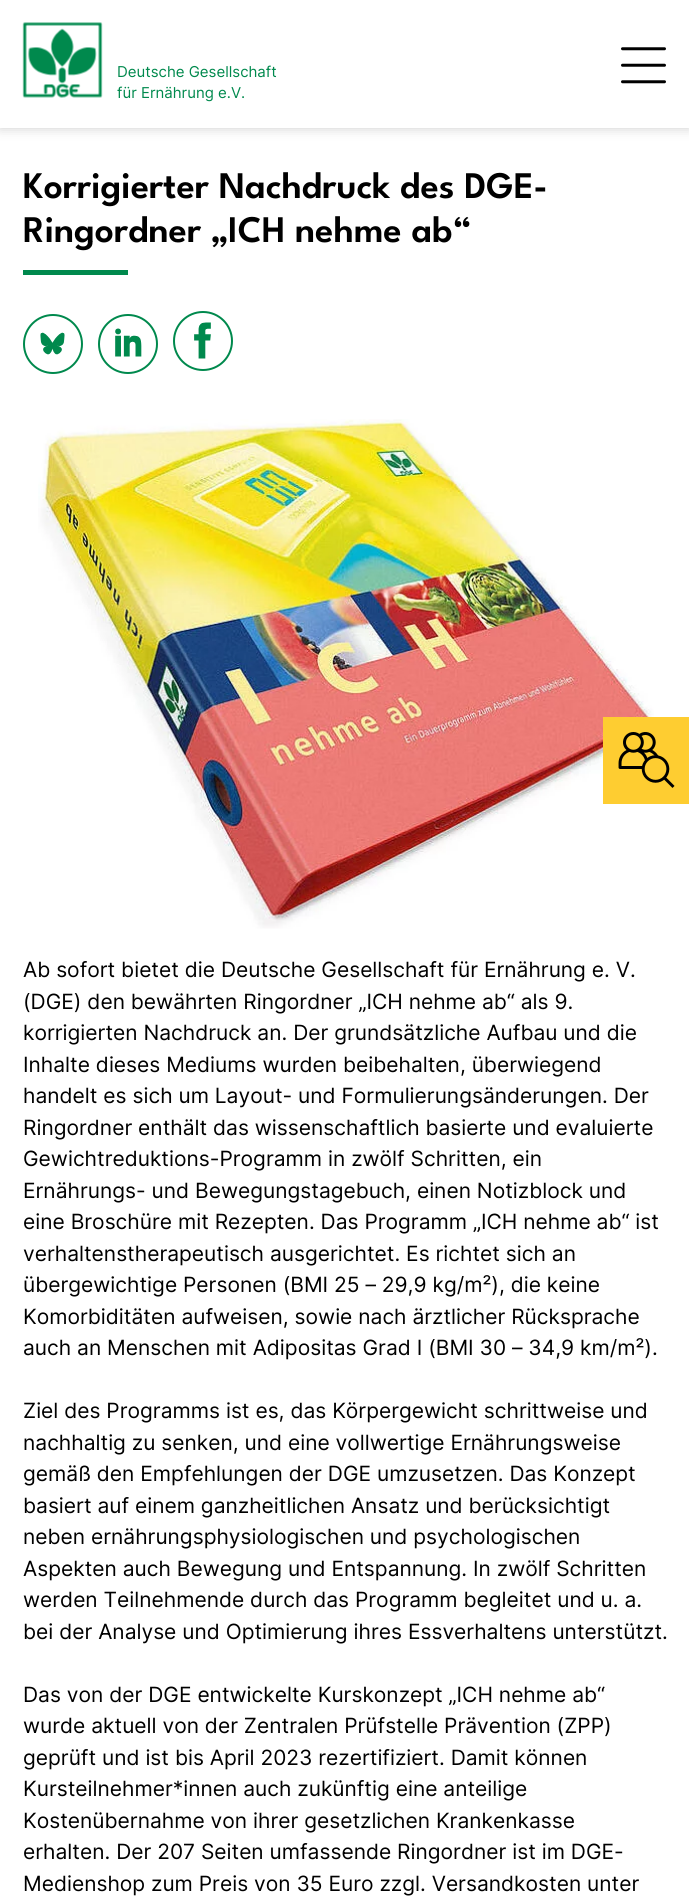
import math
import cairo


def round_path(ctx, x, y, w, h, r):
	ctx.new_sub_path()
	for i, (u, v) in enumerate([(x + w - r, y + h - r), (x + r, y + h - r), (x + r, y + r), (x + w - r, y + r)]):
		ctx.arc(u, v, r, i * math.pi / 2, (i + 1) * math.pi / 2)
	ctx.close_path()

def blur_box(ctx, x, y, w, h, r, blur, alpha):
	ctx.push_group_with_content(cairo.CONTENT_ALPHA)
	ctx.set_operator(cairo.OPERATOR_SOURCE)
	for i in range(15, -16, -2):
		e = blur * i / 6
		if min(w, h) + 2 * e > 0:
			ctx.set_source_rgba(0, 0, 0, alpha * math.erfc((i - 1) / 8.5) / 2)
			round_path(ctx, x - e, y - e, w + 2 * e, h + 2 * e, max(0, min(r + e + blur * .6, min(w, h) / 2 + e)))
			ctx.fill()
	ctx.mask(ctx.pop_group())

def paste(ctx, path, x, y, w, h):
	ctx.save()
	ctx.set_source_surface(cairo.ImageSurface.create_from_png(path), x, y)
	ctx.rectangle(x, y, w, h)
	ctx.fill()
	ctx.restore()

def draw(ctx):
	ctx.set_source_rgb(1, 1, 1)
	ctx.paint()
	ctx.set_source_rgb(0, 0, 0)
	blur_box(ctx, 0, 0, 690, 128, 0, 6, 0.2)
	ctx.set_source_rgb(1, 1, 1)
	ctx.rectangle(0, 0, 689, 128)
	ctx.fill()
	paste(ctx, 'media/1.png', 22, 22, 81, 76)
	ctx.select_font_face('Inter')
	ctx.set_font_size(15)
	ctx.set_source_rgb(0, 0.537, 0.302)
	ctx.move_to(117, 77)
	ctx.show_text('Deutsche Gesellschaft')
	ctx.move_to(117, 98)
	ctx.show_text('für Ernährung e.V.')
	paste(ctx, 'media/2.png', 621, 47, 45, 37)
	ctx.select_font_face('League Spartan SemiBold')
	ctx.set_font_size(37.5)
	ctx.set_source_rgb(0, 0, 0)
	ctx.move_to(23, 198)
	ctx.show_text('Korrigierter Nachdruck des DGE-')
	ctx.move_to(23, 242)
	ctx.show_text('Ringordner „ICH nehme ab“')
	ctx.set_source_rgb(0, 0.537, 0.302)
	ctx.rectangle(23, 270, 105, 5)
	ctx.fill()
	ctx.arc(53, 344, 29, 0, 2 * math.pi)
	ctx.stroke()
	paste(ctx, 'media/3.png', 40, 332, 25, 23)
	ctx.arc(128, 344, 29, 0, 2 * math.pi)
	ctx.stroke()
	paste(ctx, 'media/4.png', 115, 328, 27, 29)
	ctx.arc(203, 341, 29, 0, 2 * math.pi)
	ctx.stroke()
	paste(ctx, 'media/5.png', 194, 322, 17, 37)
	paste(ctx, 'media/6.png', 38, 419, 616, 510)
	ctx.select_font_face('Inter')
	ctx.set_font_size(21)
	ctx.set_source_rgb(0, 0, 0)
	for x, y, s in [
		(23, 977, 'Ab sofort bietet die Deutsche Gesellschaft für Ernährung e. V.'),
		(23, 1009, '(DGE) den bewährten Ringordner „ICH nehme ab“ als 9.'),
		(23, 1040, 'korrigierten Nachdruck an. Der grundsätzliche Aufbau und die'),
		(23, 1072, 'Inhalte dieses Mediums wurden beibehalten, überwiegend'),
		(23, 1103, 'handelt es sich um Layout- und Formulierungsänderungen. Der'),
		(23, 1135, 'Ringordner enthält das wissenschaftlich basierte und evaluierte'),
		(23, 1166, 'Gewichtreduktions-Programm in zwölf Schritten, ein'),
		(23, 1198, 'Ernährungs- und Bewegungstagebuch, einen Notizblock und'),
		(23, 1229, 'eine Broschüre mit Rezepten. Das Programm „ICH nehme ab“ ist'),
		(23, 1261, 'verhaltenstherapeutisch ausgerichtet. Es richtet sich an'),
		(23, 1292, 'übergewichtige Personen (BMI 25 – 29,9 kg/m²), die keine'),
		(23, 1324, 'Komorbiditäten aufweisen, sowie nach ärztlicher Rücksprache'),
		(23, 1355, 'auch an Menschen mit Adipositas Grad I (BMI 30 – 34,9 km/m²).'),
		(23, 1418, 'Ziel des Programms ist es, das Körpergewicht schrittweise und'),
		(23, 1450, 'nachhaltig zu senken, und eine vollwertige Ernährungsweise'),
		(23, 1481, 'gemäß den Empfehlungen der DGE umzusetzen. Das Konzept'),
		(23, 1513, 'basiert auf einem ganzheitlichen Ansatz und berücksichtigt'),
		(23, 1544, 'neben ernährungsphysiologischen und psychologischen'),
		(23, 1576, 'Aspekten auch Bewegung und Entspannung. In zwölf Schritten'),
		(23, 1607, 'werden Teilnehmende durch das Programm begleitet und u. a.'),
		(23, 1639, 'bei der Analyse und Optimierung ihres Essverhaltens unterstützt.'),
		(23, 1702, 'Das von der DGE entwickelte Kurskonzept „ICH nehme ab“'),
		(23, 1733, 'wurde aktuell von der Zentralen Prüfstelle Prävention (ZPP)'),
		(23, 1765, 'geprüft und ist bis April 2023 rezertifiziert. Damit können'),
		(23, 1796, 'Kursteilnehmer*innen auch zukünftig eine anteilige'),
		(23, 1828, 'Kostenübernahme von ihrer gesetzlichen Krankenkasse'),
		(23, 1859, 'erhalten. Der 207 Seiten umfassende Ringordner ist im DGE-'),
		(23, 1891, 'Medienshop zum Preis von 35 Euro zzgl. Versandkosten unter'),
	]:
		ctx.move_to(x, y)
		ctx.show_text(s)
	ctx.set_source_rgb(0.996, 0.804, 0.192)
	ctx.rectangle(603, 717, 86, 87)
	ctx.fill()
	paste(ctx, 'media/7.png', 618, 732, 57, 56)


surface = cairo.ImageSurface(cairo.FORMAT_RGB24, 689, 1900)
ctx = cairo.Context(surface)
options = cairo.FontOptions()
options.set_hint_metrics(cairo.HINT_METRICS_OFF)
options.set_hint_style(cairo.HINT_STYLE_NONE)
ctx.set_font_options(options)
ctx.set_miter_limit(4)
draw(ctx)
surface.write_to_png('image.png')
